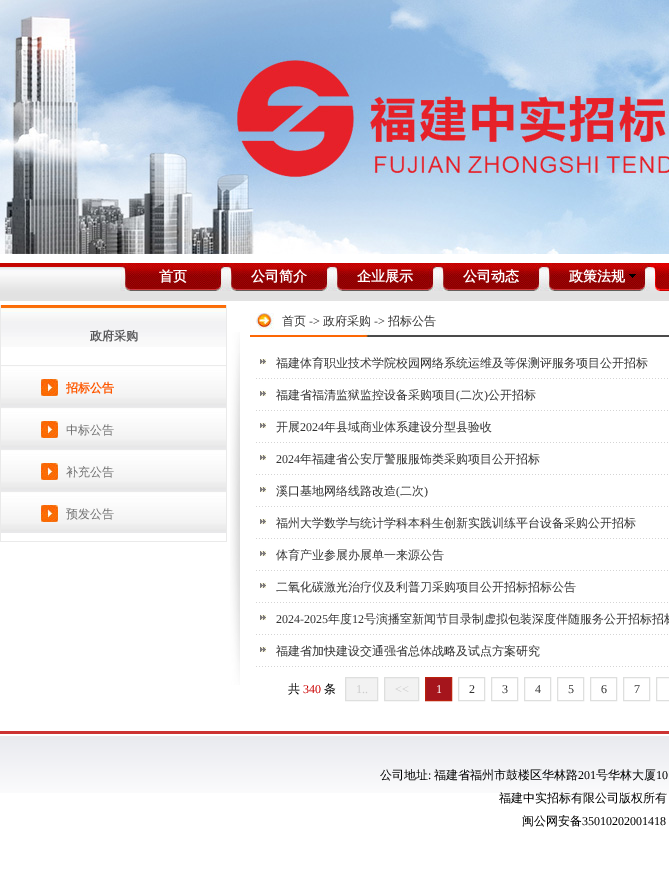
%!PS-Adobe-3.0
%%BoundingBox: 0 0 669 873
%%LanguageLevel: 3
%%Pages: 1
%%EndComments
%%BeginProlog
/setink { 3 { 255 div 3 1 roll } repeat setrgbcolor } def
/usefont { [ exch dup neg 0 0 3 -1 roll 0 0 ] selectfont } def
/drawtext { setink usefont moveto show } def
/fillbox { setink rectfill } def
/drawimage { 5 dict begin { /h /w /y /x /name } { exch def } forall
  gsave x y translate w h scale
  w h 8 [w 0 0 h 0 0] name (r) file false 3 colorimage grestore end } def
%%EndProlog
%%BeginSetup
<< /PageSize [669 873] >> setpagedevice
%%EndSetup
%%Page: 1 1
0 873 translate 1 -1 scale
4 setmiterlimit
0 0 669 873 255 255 255 fillbox
(assets/img1.rgb) 0 0 669 254 drawimage
(assets/img2.rgb) 0 263 669 38 drawimage
(assets/img3.rgb) 120 263 106 28 drawimage
(首页) 159 281 /WenQuanYiZenHei-Bold 14 255 255 255 drawtext
(assets/img3.rgb) 226 263 106 28 drawimage
(公司简介) 251 281 /WenQuanYiZenHei-Bold 14 255 255 255 drawtext
(assets/img3.rgb) 332 263 106 28 drawimage
(企业展示) 357 281 /WenQuanYiZenHei-Bold 14 255 255 255 drawtext
(assets/img3.rgb) 438 263 106 28 drawimage
(公司动态) 463 281 /WenQuanYiZenHei-Bold 14 255 255 255 drawtext
(assets/img3.rgb) 544 263 106 28 drawimage
(assets/img4.rgb) 629 274 7 4 drawimage
(政策法规) 569 281 /WenQuanYiZenHei-Bold 14 255 255 255 drawtext
(assets/img5.rgb) 650 263 19 28 drawimage
(assets/img6.rgb) 230 332 10 353 drawimage
(assets/img7.rgb) 1 305 225 42 drawimage
226 305 1 237 234 234 234 fillbox
0 541 227 1 234 234 234 fillbox
0 305 1 237 234 234 234 fillbox
(政府采购) 90 340 /WenQuanYiZenHei-Bold 12 87 87 89 drawtext
(assets/img8.rgb) 1 365 225 168 drawimage
(assets/img9.rgb) 41 379 17 17 drawimage
(招标公告) 66 392 /WenQuanYiZenHei-Bold 12 255 88 0 drawtext
(assets/img9.rgb) 41 421 17 17 drawimage
(中标公告) 66 434 /WenQuanYiZenHei-Medium 12 112 112 112 drawtext
(assets/img9.rgb) 41 463 17 17 drawimage
(补充公告) 66 476 /WenQuanYiZenHei-Medium 12 112 112 112 drawtext
(assets/img9.rgb) 41 505 17 17 drawimage
(预发公告) 66 518 /WenQuanYiZenHei-Medium 12 112 112 112 drawtext
(assets/img10.rgb) 250 313 419 24 drawimage
(首页) 282 325 /WenQuanYiZenHei-Medium 12 51 51 51 drawtext
(->) 309 325 /LiberationSerif-Regular 12 51 51 51 drawtext
(政府采购) 323 325 /WenQuanYiZenHei-Medium 12 51 51 51 drawtext
(->) 374 325 /LiberationSerif-Regular 12 51 51 51 drawtext
(招标公告) 388 325 /WenQuanYiZenHei-Medium 12 51 51 51 drawtext
(assets/img11.rgb) 260 359 6 293 drawimage
(assets/img12.rgb) 256 378 412 1 drawimage
(福建体育职业技术学院校园网络系统运维及等保测评服务项目公开招标) 276 367 /WenQuanYiZenHei-Medium 12 51 51 51 drawtext
(assets/img12.rgb) 256 410 412 1 drawimage
(福建省福清监狱监控设备采购项目) 276 399 /WenQuanYiZenHei-Medium 12 51 51 51 drawtext
(\() 456 399 /LiberationSerif-Regular 12 51 51 51 drawtext
(二次) 460 399 /WenQuanYiZenHei-Medium 12 51 51 51 drawtext
(\)) 484 399 /LiberationSerif-Regular 12 51 51 51 drawtext
(公开招标) 488 399 /WenQuanYiZenHei-Medium 12 51 51 51 drawtext
(assets/img12.rgb) 256 442 412 1 drawimage
(开展) 276 431 /WenQuanYiZenHei-Medium 12 51 51 51 drawtext
(2024) 300 431 /LiberationSerif-Regular 12 51 51 51 drawtext
(年县域商业体系建设分型县验收) 324 431 /WenQuanYiZenHei-Medium 12 51 51 51 drawtext
(assets/img12.rgb) 256 474 412 1 drawimage
(2024) 276 463 /LiberationSerif-Regular 12 51 51 51 drawtext
(年福建省公安厅警服服饰类采购项目公开招标) 300 463 /WenQuanYiZenHei-Medium 12 51 51 51 drawtext
(assets/img12.rgb) 256 506 412 1 drawimage
(溪口基地网络线路改造) 276 495 /WenQuanYiZenHei-Medium 12 51 51 51 drawtext
(\() 396 495 /LiberationSerif-Regular 12 51 51 51 drawtext
(二次) 400 495 /WenQuanYiZenHei-Medium 12 51 51 51 drawtext
(\)) 424 495 /LiberationSerif-Regular 12 51 51 51 drawtext
(assets/img12.rgb) 256 538 412 1 drawimage
(福州大学数学与统计学科本科生创新实践训练平台设备采购公开招标) 276 527 /WenQuanYiZenHei-Medium 12 51 51 51 drawtext
(assets/img12.rgb) 256 570 412 1 drawimage
(体育产业参展办展单一来源公告) 276 559 /WenQuanYiZenHei-Medium 12 51 51 51 drawtext
(assets/img12.rgb) 256 602 412 1 drawimage
(二氧化碳激光治疗仪及利普刀采购项目公开招标招标公告) 276 591 /WenQuanYiZenHei-Medium 12 51 51 51 drawtext
(assets/img12.rgb) 256 634 412 1 drawimage
(2024-2025) 276 623 /LiberationSerif-Regular 12 51 51 51 drawtext
(年度) 328 623 /WenQuanYiZenHei-Medium 12 51 51 51 drawtext
(12) 352 623 /LiberationSerif-Regular 12 51 51 51 drawtext
(号演播室新闻节目录制虚拟包装深度伴随服务公开招标招标) 364 623 /WenQuanYiZenHei-Medium 12 51 51 51 drawtext
(assets/img12.rgb) 256 666 412 1 drawimage
(福建省加快建设交通强省总体战略及试点方案研究) 276 655 /WenQuanYiZenHei-Medium 12 51 51 51 drawtext
(共) 288 693 /WenQuanYiZenHei-Medium 12 0 0 0 drawtext
(340) 303 693 /LiberationSerif-Regular 12 204 0 0 drawtext
(条) 324 693 /WenQuanYiZenHei-Medium 12 0 0 0 drawtext
242 242 242 setink
345.5 677.5 moveto 377.5 677.5 lineto 377.5 700.5 lineto 345.5 700.5 lineto closepath gsave fill grestore
222 223 222 setink
stroke
(1..) 356 693 /LiberationSerif-Regular 12 204 204 204 drawtext
242 242 242 setink
384.5 677.5 moveto 418.5 677.5 lineto 418.5 700.5 lineto 384.5 700.5 lineto closepath gsave fill grestore
222 223 222 setink
stroke
(<<) 395 693 /LiberationSerif-Regular 12 204 204 204 drawtext
165 21 28 setink
425.5 677.5 moveto 451.5 677.5 lineto 451.5 700.5 lineto 425.5 700.5 lineto closepath gsave fill grestore
186 33 13 setink
stroke
(1) 436 693 /LiberationSerif-Regular 12 255 255 255 drawtext
222 223 222 setink
458.5 677.5 26 23 rectstroke
(2) 469 693 /LiberationSerif-Regular 12 51 51 51 drawtext
222 223 222 setink
491.5 677.5 26 23 rectstroke
(3) 502 693 /LiberationSerif-Regular 12 51 51 51 drawtext
222 223 222 setink
524.5 677.5 26 23 rectstroke
(4) 535 693 /LiberationSerif-Regular 12 51 51 51 drawtext
222 223 222 setink
557.5 677.5 26 23 rectstroke
(5) 568 693 /LiberationSerif-Regular 12 51 51 51 drawtext
222 223 222 setink
590.5 677.5 26 23 rectstroke
(6) 601 693 /LiberationSerif-Regular 12 51 51 51 drawtext
222 223 222 setink
623.5 677.5 26 23 rectstroke
(7) 634 693 /LiberationSerif-Regular 12 51 51 51 drawtext
222 223 222 setink
656.5 677.5 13 23 rectstroke
(assets/img13.rgb) 0 731 669 62 drawimage
(公司地址) 380 779 /WenQuanYiZenHei-Medium 12 0 0 0 drawtext
(:) 428 779 /LiberationSerif-Regular 12 0 0 0 drawtext
(福建省福州市鼓楼区华林路) 434 779 /WenQuanYiZenHei-Medium 12 0 0 0 drawtext
(201) 578 779 /LiberationSerif-Regular 12 0 0 0 drawtext
(号华林大厦) 596 779 /WenQuanYiZenHei-Medium 12 0 0 0 drawtext
(10) 656 779 /LiberationSerif-Regular 12 0 0 0 drawtext
(福建中实招标有限公司版权所有) 499 802 /WenQuanYiZenHei-Medium 12 0 0 0 drawtext
(闽公网安备) 522 825 /WenQuanYiZenHei-Medium 12 0 0 0 drawtext
(35010202001418) 582 825 /LiberationSerif-Regular 12 0 0 0 drawtext
showpage
%%EOF
